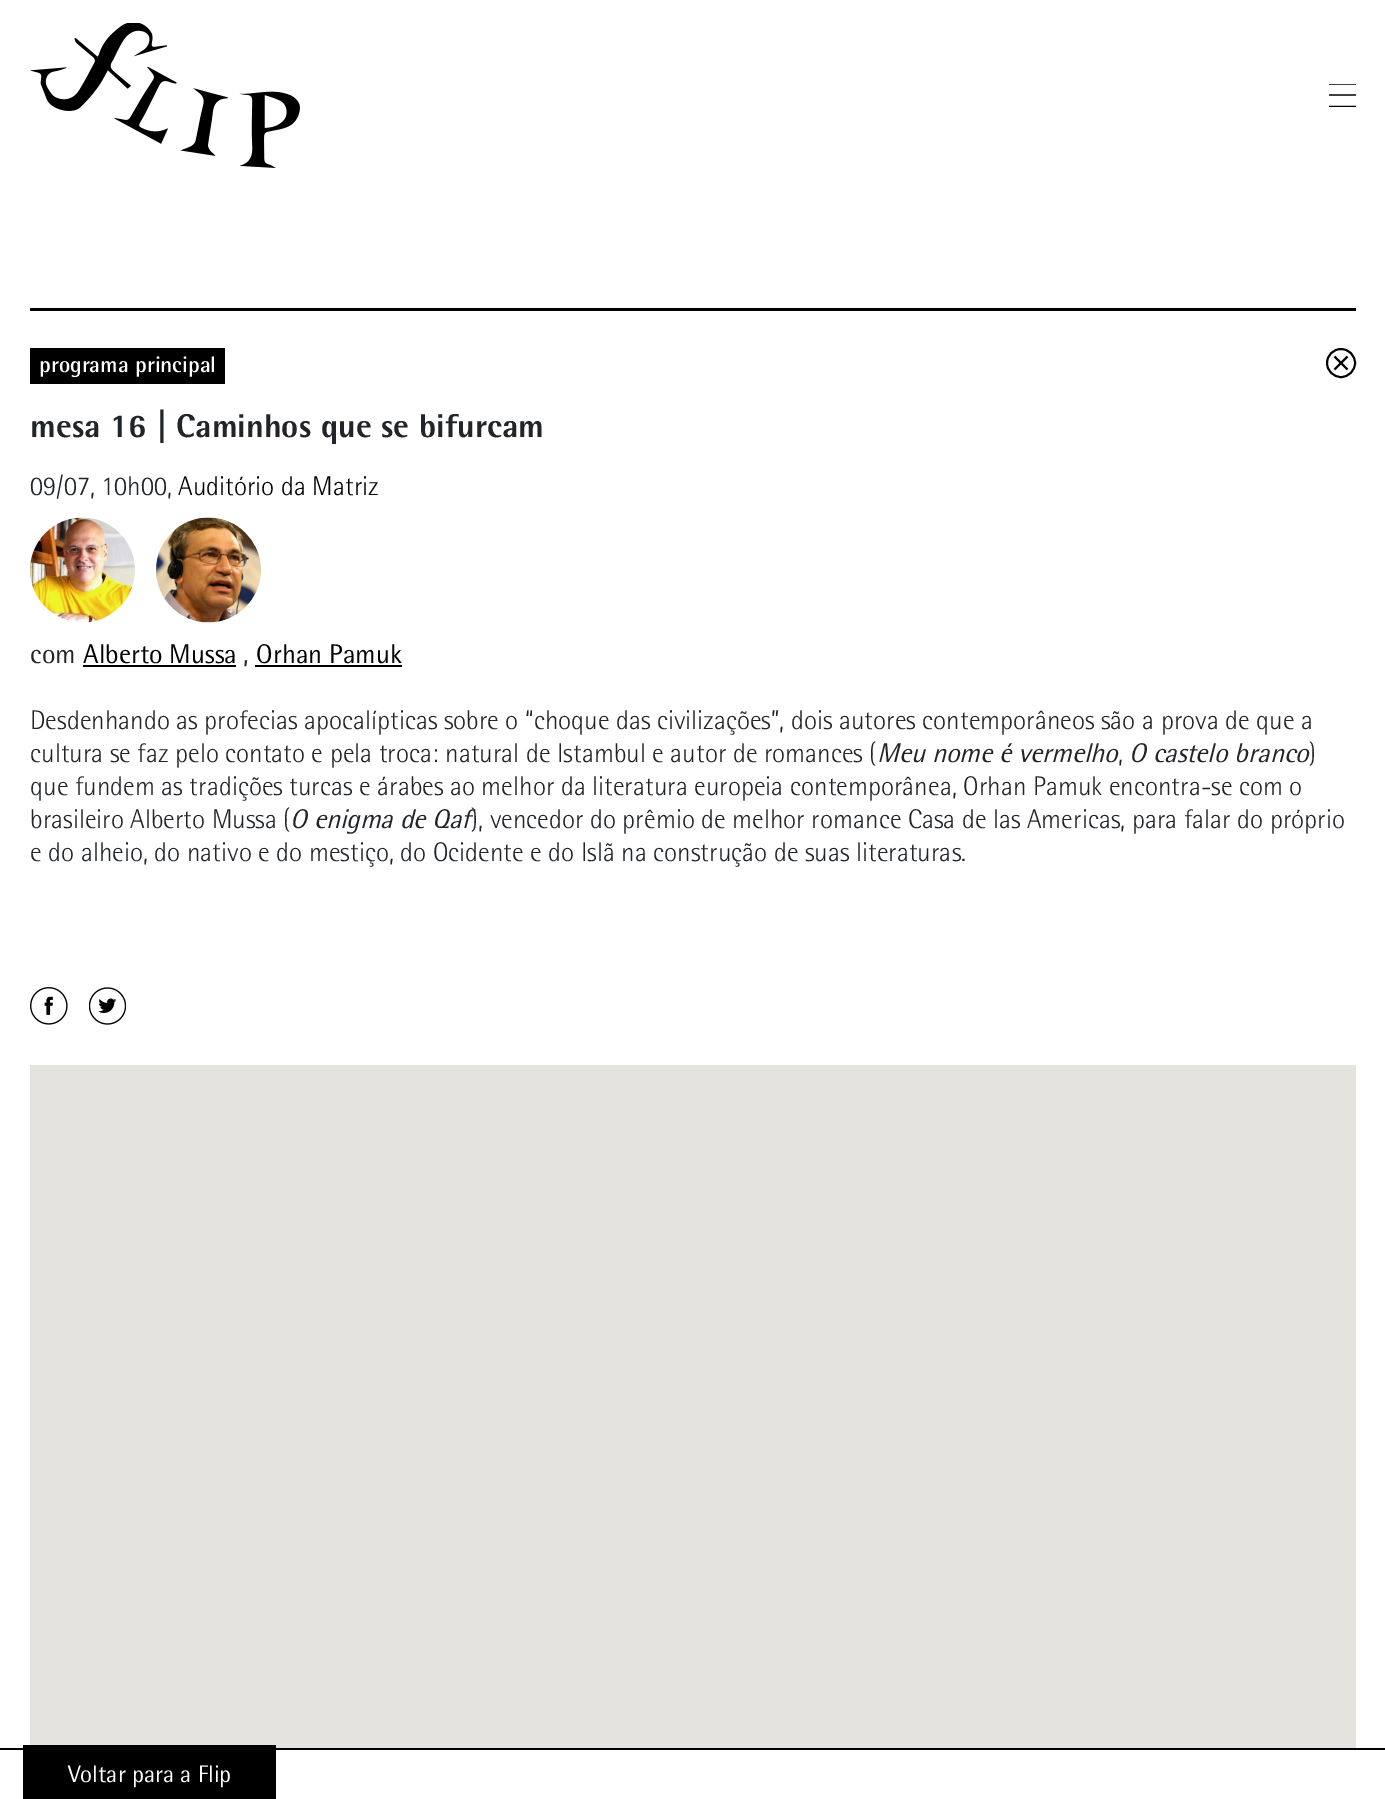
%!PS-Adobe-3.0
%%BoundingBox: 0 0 1385 1799
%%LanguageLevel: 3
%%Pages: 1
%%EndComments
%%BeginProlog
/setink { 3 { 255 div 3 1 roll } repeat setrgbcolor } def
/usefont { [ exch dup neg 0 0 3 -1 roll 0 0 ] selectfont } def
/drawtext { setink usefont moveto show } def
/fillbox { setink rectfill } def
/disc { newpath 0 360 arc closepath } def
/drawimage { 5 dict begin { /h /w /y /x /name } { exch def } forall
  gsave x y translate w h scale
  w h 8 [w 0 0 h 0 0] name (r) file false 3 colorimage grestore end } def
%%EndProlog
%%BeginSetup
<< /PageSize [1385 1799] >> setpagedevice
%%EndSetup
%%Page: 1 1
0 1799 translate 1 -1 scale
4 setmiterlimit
0 0 1385 1799 255 255 255 fillbox
(assets/img1.rgb) 30 23 270 145 drawimage
1329 84 27 1 64 64 64 fillbox
1329 94 27 2 64 64 64 fillbox
gsave
1329 84 27 23 rectclip
0 0 0 setink
1.5 setlinewidth
1329 106.5 moveto 1356 106.5 lineto stroke
grestore
30 308 1326 3 0 0 0 fillbox
30 348 195 36 0 0 0 fillbox
(programa principal) 39 372 /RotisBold-Bold 22.5 255 255 255 drawtext
0 0 0 setink
1.9 setlinewidth
1334.5 356.5 moveto 1347.5 369.5 lineto 1347.5 356.5 moveto 1334.5 369.5 lineto stroke
1341 363 14 disc stroke
(mesa 16 | Caminhos que se bifurcam) 30 437 /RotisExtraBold-ExtraBold 33 33 37 41 drawtext
(09/07, 10h00,) 30 495 /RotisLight-Light 27 33 37 41 drawtext
(Auditório da Matriz) 178 495 /RotisLight-Light 27 0 0 0 drawtext
(assets/img2.rgb) 30 517 105 105 drawimage
(assets/img3.rgb) 156 517 105 106 drawimage
(com) 30 663 /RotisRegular-Regular 27 33 37 41 drawtext
(Alberto Mussa) 83 663 /RotisRegular-Regular 27 0 0 0 drawtext
83 665 153 2 0 0 0 fillbox
(,) 243 663 /RotisRegular-Regular 27 33 37 41 drawtext
(Orhan Pamuk) 256 663 /RotisRegular-Regular 27 0 0 0 drawtext
255 665 147 2 0 0 0 fillbox
(Desdenhando as profecias apocalípticas sobre o “choque das civilizações”, dois autores contemporâneos são a prova de que a) 30 729 /RotisLight-Light 27 33 37 41 drawtext
(cultura se faz pelo contato e pela troca: natural de Istambul e autor de romances \() 30 762 /RotisLight-Light 27 33 37 41 drawtext
(Meu nome é vermelho) 877 762 /RotisRegular-Italic 27 33 37 41 drawtext
(,) 1118 762 /RotisLight-Light 27 33 37 41 drawtext
(O castelo branco) 1129 762 /RotisRegular-Italic 27 33 37 41 drawtext
(\)) 1309 762 /RotisLight-Light 27 33 37 41 drawtext
(que fundem as tradições turcas e árabes ao melhor da literatura europeia contemporânea, Orhan Pamuk encontra-se com o) 30 795 /RotisLight-Light 27 33 37 41 drawtext
(brasileiro Alberto Mussa \() 30 828 /RotisLight-Light 27 33 37 41 drawtext
(O enigma de Qaf) 290 828 /RotisRegular-Italic 27 33 37 41 drawtext
(\), vencedor do prêmio de melhor romance Casa de las Americas, para falar do próprio) 471 828 /RotisLight-Light 27 33 37 41 drawtext
(e do alheio, do nativo e do mestiço, do Ocidente e do Islã na construção de suas literaturas.) 30 861 /RotisLight-Light 27 33 37 41 drawtext
(assets/img4.rgb) 30 987 38 38 drawimage
(assets/img5.rgb) 89 987 37 38 drawimage
30 1065 1326 683 229 227 223 fillbox
0 1748 1385 2 0 0 0 fillbox
23 1745 253 54 0 0 0 fillbox
(Voltar para a Flip) 68 1782 /RotisRegular-Regular 24 255 255 255 drawtext
showpage
%%EOF
